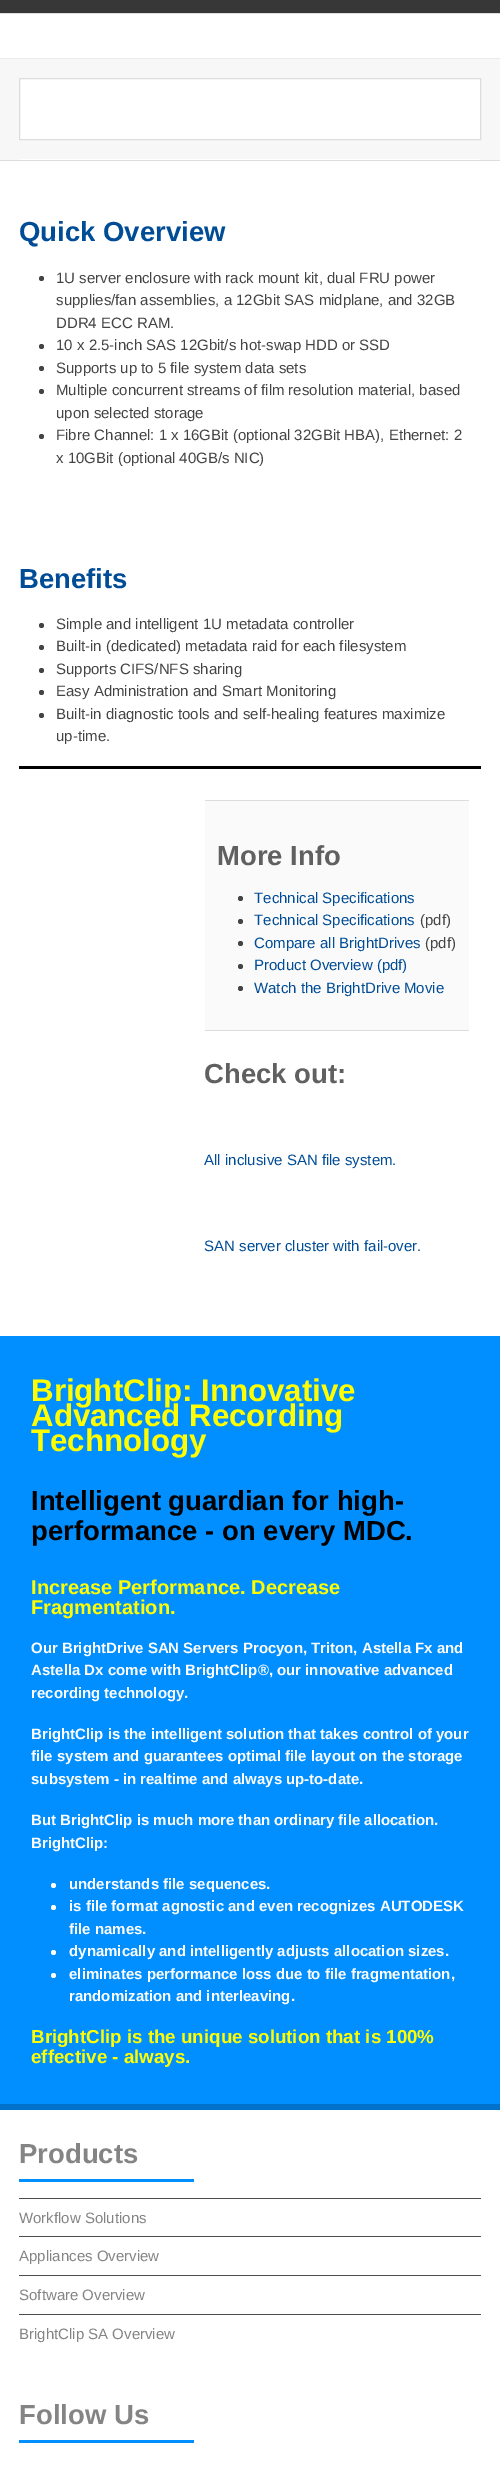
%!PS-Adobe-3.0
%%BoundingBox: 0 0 500 2478
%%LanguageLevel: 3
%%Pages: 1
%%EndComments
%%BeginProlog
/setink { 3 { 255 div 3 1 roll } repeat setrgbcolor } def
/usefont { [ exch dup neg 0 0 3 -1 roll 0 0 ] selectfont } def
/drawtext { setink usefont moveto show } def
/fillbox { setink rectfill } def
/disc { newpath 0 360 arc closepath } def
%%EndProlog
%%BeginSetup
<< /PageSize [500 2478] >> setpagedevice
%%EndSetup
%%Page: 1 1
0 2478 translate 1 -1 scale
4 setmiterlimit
0 0 500 2478 255 255 255 fillbox
0 0 500 13 55 55 55 fillbox
0 13 500 1 221 221 221 fillbox
0 58 500 1 234 234 234 fillbox
0 59 500 101 247 247 247 fillbox
0 160 500 1 221 221 221 fillbox
255 255 255 setink
19.5 78.5 moveto 480.5 78.5 lineto 480.5 139.5 lineto 19.5 139.5 lineto closepath gsave fill grestore
221 221 221 setink
stroke
19 159 462 1 255 255 255 fillbox
19 766 462 3 0 0 0 fillbox
(Quick Overview) 19 241 /LiberationSans-Bold 27.5 0 76 150 drawtext
68 68 68 setink
41.5 278.5 2.5 disc fill
(1U server enclosure with rack mount kit, dual FRU power) 56 283 /LiberationSans-Regular 15 68 68 68 drawtext
(supplies/fan assemblies, a 12Gbit SAS midplane, and 32GB) 56 305 /LiberationSans-Regular 15 68 68 68 drawtext
(DDR4 ECC RAM.) 56 328 /LiberationSans-Regular 15 68 68 68 drawtext
41.5 346.5 2.5 disc fill
(10 x 2.5-inch SAS 12Gbit/s hot-swap HDD or SSD) 56 350 /LiberationSans-Regular 15 68 68 68 drawtext
41.5 368.5 2.5 disc fill
(Supports up to 5 file system data sets) 56 373 /LiberationSans-Regular 15 68 68 68 drawtext
41.5 391.5 2.5 disc fill
(Multiple concurrent streams of film resolution material, based) 56 395 /LiberationSans-Regular 15 68 68 68 drawtext
(upon selected storage) 56 418 /LiberationSans-Regular 15 68 68 68 drawtext
41.5 436.5 2.5 disc fill
(Fibre Channel: 1 x 16GBit \(optional 32GBit HBA\), Ethernet: 2) 56 440 /LiberationSans-Regular 15 68 68 68 drawtext
(x 10GBit \(optional 40GB/s NIC\)) 56 463 /LiberationSans-Regular 15 68 68 68 drawtext
(Benefits) 19 588 /LiberationSans-Bold 27.5 0 76 150 drawtext
68 68 68 setink
41.5 625.5 2.5 disc fill
(Simple and intelligent 1U metadata controller) 56 629 /LiberationSans-Regular 15 68 68 68 drawtext
41.5 647.5 2.5 disc fill
(Built-in \(dedicated\) metadata raid for each filesystem) 56 651 /LiberationSans-Regular 15 68 68 68 drawtext
41.5 670.5 2.5 disc fill
(Supports CIFS/NFS sharing) 56 674 /LiberationSans-Regular 15 68 68 68 drawtext
41.5 692.5 2.5 disc fill
(Easy Administration and Smart Monitoring) 56 696 /LiberationSans-Regular 15 68 68 68 drawtext
41.5 715.5 2.5 disc fill
(Built-in diagnostic tools and self-healing features maximize) 56 719 /LiberationSans-Regular 15 68 68 68 drawtext
(up-time.) 56 741 /LiberationSans-Regular 15 68 68 68 drawtext
205 801 264 229 250 250 250 fillbox
205 800 264 1 221 221 221 fillbox
205 1030 264 1 221 221 221 fillbox
(More Info) 217 865 /LiberationSans-Bold 27.5 96 96 96 drawtext
68 68 68 setink
240.5 898.5 2.5 disc fill
(Technical Specifications) 254 903 /LiberationSans-Regular 15 0 76 150 drawtext
68 68 68 setink
240.5 921.5 2.5 disc fill
(Technical Specifications) 254 925 /LiberationSans-Regular 15 0 76 150 drawtext
(\(pdf\)) 420 925 /LiberationSans-Regular 15 68 68 68 drawtext
240.5 943.5 2.5 disc fill
(Compare all BrightDrives) 254 948 /LiberationSans-Regular 15 0 76 150 drawtext
(\(pdf\)) 425 948 /LiberationSans-Regular 15 68 68 68 drawtext
240.5 966.5 2.5 disc fill
(Product Overview \(pdf\)) 254 970 /LiberationSans-Regular 15 0 76 150 drawtext
68 68 68 setink
240.5 988.5 2.5 disc fill
(Watch the BrightDrive Movie) 254 993 /LiberationSans-Regular 15 0 76 150 drawtext
(Check out:) 204 1083 /LiberationSans-Bold 27.5 96 96 96 drawtext
(All inclusive SAN file system.) 204 1165 /LiberationSans-Regular 15 0 76 150 drawtext
(SAN server cluster with fail-over.) 204 1251 /LiberationSans-Regular 15 0 76 150 drawtext
0 1336 500 768 1 143 255 fillbox
0 2104 500 6 1 114 204 fillbox
(BrightClip: Innovative) 31 1401 /LiberationSans-Bold 31.25 255 255 0 drawtext
(Advanced Recording) 31 1426 /LiberationSans-Bold 31.25 255 255 0 drawtext
(Technology) 31 1451 /LiberationSans-Bold 31.25 255 255 0 drawtext
(Intelligent guardian for high-) 31 1510 /LiberationSans-Bold 27.5 0 0 0 drawtext
(performance - on every MDC.) 31 1540 /LiberationSans-Bold 27.5 0 0 0 drawtext
(Increase Performance. Decrease) 31 1594 /LiberationSans-Bold 20 255 255 0 drawtext
(Fragmentation.) 31 1614 /LiberationSans-Bold 20 255 255 0 drawtext
(Our BrightDrive SAN Servers Procyon, Triton, Astella Fx and) 31 1653 /LiberationSans-Bold 15 255 255 255 drawtext
(Astella Dx come with BrightClip®, our innovative advanced) 31 1675 /LiberationSans-Bold 15 255 255 255 drawtext
(recording technology.) 31 1698 /LiberationSans-Bold 15 255 255 255 drawtext
(BrightClip is the intelligent solution that takes control of your) 31 1739 /LiberationSans-Bold 15 255 255 255 drawtext
(file system and guarantees optimal file layout on the storage) 31 1761 /LiberationSans-Bold 15 255 255 255 drawtext
(subsystem - in realtime and always up-to-date.) 31 1784 /LiberationSans-Bold 15 255 255 255 drawtext
(But BrightClip is much more than ordinary file allocation.) 31 1825 /LiberationSans-Bold 15 255 255 255 drawtext
(BrightClip:) 31 1848 /LiberationSans-Bold 15 255 255 255 drawtext
53.5 1885.5 2.5 disc fill
(understands file sequences.) 69 1889 /LiberationSans-Bold 15 255 255 255 drawtext
53.5 1907.5 2.5 disc fill
(is file format agnostic and even recognizes AUTODESK) 69 1911 /LiberationSans-Bold 15 255 255 255 drawtext
(file names.) 69 1934 /LiberationSans-Bold 15 255 255 255 drawtext
53.5 1952.5 2.5 disc fill
(dynamically and intelligently adjusts allocation sizes.) 69 1956 /LiberationSans-Bold 15 255 255 255 drawtext
53.5 1975.5 2.5 disc fill
(eliminates performance loss due to file fragmentation,) 69 1979 /LiberationSans-Bold 15 255 255 255 drawtext
(randomization and interleaving.) 69 2001 /LiberationSans-Bold 15 255 255 255 drawtext
(BrightClip is the unique solution that is 100%) 31 2043 /LiberationSans-Bold 18.75 255 255 0 drawtext
(effective - always.) 31 2063 /LiberationSans-Bold 18.75 255 255 0 drawtext
(Products) 19 2163 /LiberationSans-Bold 27.5 132 132 132 drawtext
19 2179 175 3 1 143 255 fillbox
19 2198 462 1 77 77 77 fillbox
(Workflow Solutions) 19 2223 /LiberationSans-Regular 15 132 132 132 drawtext
19 2236 462 1 77 77 77 fillbox
(Appliances Overview) 19 2261 /LiberationSans-Regular 15 132 132 132 drawtext
19 2275 462 1 77 77 77 fillbox
(Software Overview) 19 2300 /LiberationSans-Regular 15 132 132 132 drawtext
19 2314 462 1 77 77 77 fillbox
(BrightClip SA Overview) 19 2339 /LiberationSans-Regular 15 132 132 132 drawtext
(Follow Us) 19 2424 /LiberationSans-Bold 27.5 132 132 132 drawtext
19 2440 175 3 1 143 255 fillbox
showpage
%%EOF
